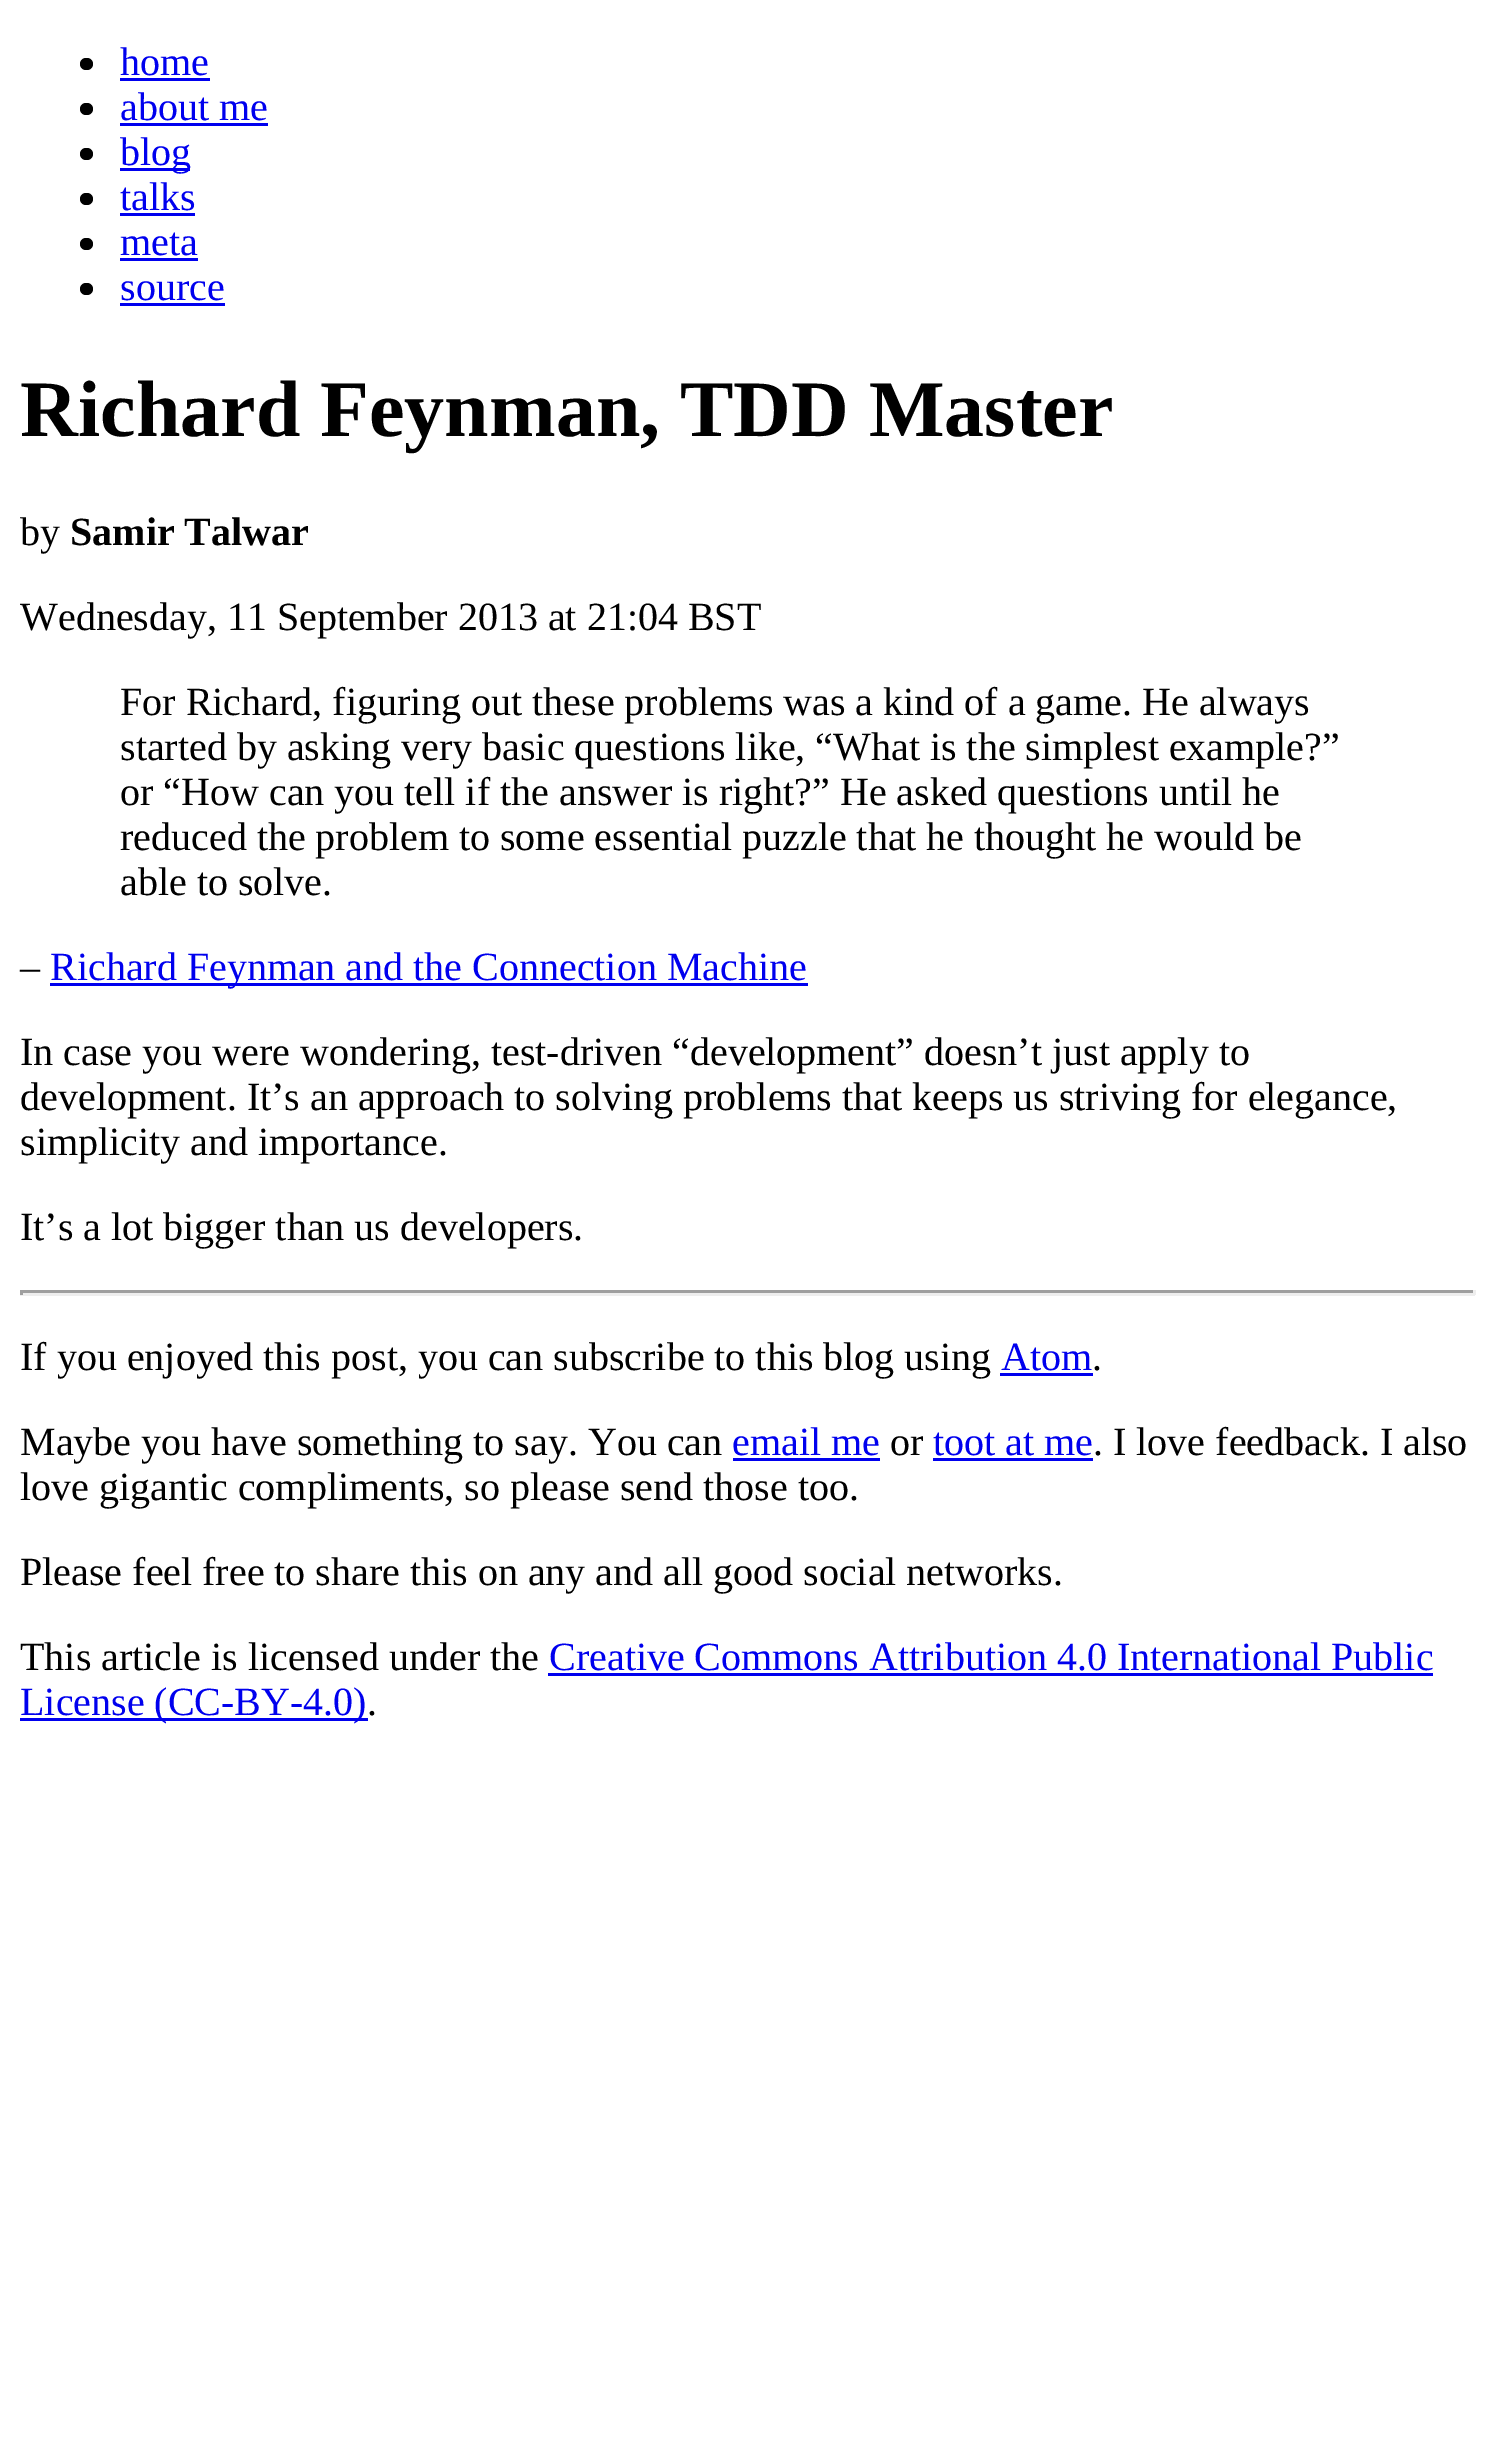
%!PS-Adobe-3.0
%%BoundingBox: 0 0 1495 2443
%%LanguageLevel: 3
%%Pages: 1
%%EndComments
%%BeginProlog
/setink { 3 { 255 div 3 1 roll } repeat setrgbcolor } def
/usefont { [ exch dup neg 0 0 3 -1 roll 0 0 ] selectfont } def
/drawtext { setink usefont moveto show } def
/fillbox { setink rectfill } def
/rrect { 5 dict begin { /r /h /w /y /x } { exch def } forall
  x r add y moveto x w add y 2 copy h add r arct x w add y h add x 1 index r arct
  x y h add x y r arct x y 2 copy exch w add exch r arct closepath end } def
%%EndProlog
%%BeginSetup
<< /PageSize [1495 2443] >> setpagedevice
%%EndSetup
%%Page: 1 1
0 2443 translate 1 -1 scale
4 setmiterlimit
0 0 1495 2443 255 255 255 fillbox
0 0 0 setink
80 58 13 12 6 rrect fill
(home) 120 75 /LiberationSerif-Regular 40 0 0 238 drawtext
120 78 90 3 0 0 238 fillbox
0 0 0 setink
80 103 13 12 6 rrect fill
(about me) 120 120 /LiberationSerif-Regular 40 0 0 238 drawtext
120 123 148 3 0 0 238 fillbox
0 0 0 setink
80 148 13 12 6 rrect fill
120 168 70 3 0 0 238 fillbox
(blog) 120 165 /LiberationSerif-Regular 40 0 0 238 drawtext
0 0 0 setink
80 193 13 12 6 rrect fill
(talks) 120 210 /LiberationSerif-Regular 40 0 0 238 drawtext
120 213 75 3 0 0 238 fillbox
0 0 0 setink
80 238 13 12 6 rrect fill
(meta) 120 255 /LiberationSerif-Regular 40 0 0 238 drawtext
120 258 78 3 0 0 238 fillbox
0 0 0 setink
80 283 13 12 6 rrect fill
(source) 120 300 /LiberationSerif-Regular 40 0 0 238 drawtext
120 303 105 3 0 0 238 fillbox
(Richard Feynman, TDD Master) 20 436 /LiberationSerif-Bold 80 0 0 0 drawtext
(by) 20 545 /LiberationSerif-Regular 40 0 0 0 drawtext
(Samir Talwar) 70 545 /LiberationSerif-Bold 40 0 0 0 drawtext
(Wednesday, 11 September 2013 at 21:04 BST) 20 630 /LiberationSerif-Regular 40 0 0 0 drawtext
(For Richard, figuring out these problems was a kind of a game. He always) 120 715 /LiberationSerif-Regular 40 0 0 0 drawtext
(started by asking very basic questions like, “What is the simplest example?”) 120 760 /LiberationSerif-Regular 40 0 0 0 drawtext
(or “How can you tell if the answer is right?” He asked questions until he) 120 805 /LiberationSerif-Regular 40 0 0 0 drawtext
(reduced the problem to some essential puzzle that he thought he would be) 120 850 /LiberationSerif-Regular 40 0 0 0 drawtext
(able to solve.) 120 895 /LiberationSerif-Regular 40 0 0 0 drawtext
(–) 20 980 /LiberationSerif-Regular 40 0 0 0 drawtext
50 983 758 3 0 0 238 fillbox
(Richard Feynman and the Connection Machine) 50 980 /LiberationSerif-Regular 40 0 0 238 drawtext
(In case you were wondering, test-driven “development” doesn’t just apply to) 20 1065 /LiberationSerif-Regular 40 0 0 0 drawtext
(development. It’s an approach to solving problems that keeps us striving for elegance,) 20 1110 /LiberationSerif-Regular 40 0 0 0 drawtext
(simplicity and importance.) 20 1155 /LiberationSerif-Regular 40 0 0 0 drawtext
(It’s a lot bigger than us developers.) 20 1240 /LiberationSerif-Regular 40 0 0 0 drawtext
20 1290 1455 3 159 159 159 fillbox
1473 1290 3 5 238 238 238 fillbox
20 1293 1455 3 238 238 238 fillbox
20 1290 3 5 159 159 159 fillbox
(If you enjoyed this post, you can subscribe to this blog using) 20 1370 /LiberationSerif-Regular 40 0 0 0 drawtext
(Atom) 1001 1370 /LiberationSerif-Regular 40 0 0 238 drawtext
1000 1373 93 3 0 0 238 fillbox
(.) 1092 1370 /LiberationSerif-Regular 40 0 0 0 drawtext
(Maybe you have something to say. You can) 20 1455 /LiberationSerif-Regular 40 0 0 0 drawtext
(email me) 732 1455 /LiberationSerif-Regular 40 0 0 238 drawtext
733 1458 147 3 0 0 238 fillbox
(or) 890 1455 /LiberationSerif-Regular 40 0 0 0 drawtext
(toot at me) 933 1455 /LiberationSerif-Regular 40 0 0 238 drawtext
933 1458 160 3 0 0 238 fillbox
(. I love feedback. I also) 1093 1455 /LiberationSerif-Regular 40 0 0 0 drawtext
(love gigantic compliments, so please send those too.) 20 1500 /LiberationSerif-Regular 40 0 0 0 drawtext
(Please feel free to share this on any and all good social networks.) 20 1585 /LiberationSerif-Regular 40 0 0 0 drawtext
(This article is licensed under the) 20 1670 /LiberationSerif-Regular 40 0 0 0 drawtext
(Creative Commons Attribution 4.0 International Public) 549 1670 /LiberationSerif-Regular 40 0 0 238 drawtext
548 1673 885 3 0 0 238 fillbox
20 1718 348 3 0 0 238 fillbox
(License \(CC-BY-4.0\)) 20 1715 /LiberationSerif-Regular 40 0 0 238 drawtext
(.) 367 1715 /LiberationSerif-Regular 40 0 0 0 drawtext
showpage
%%EOF
